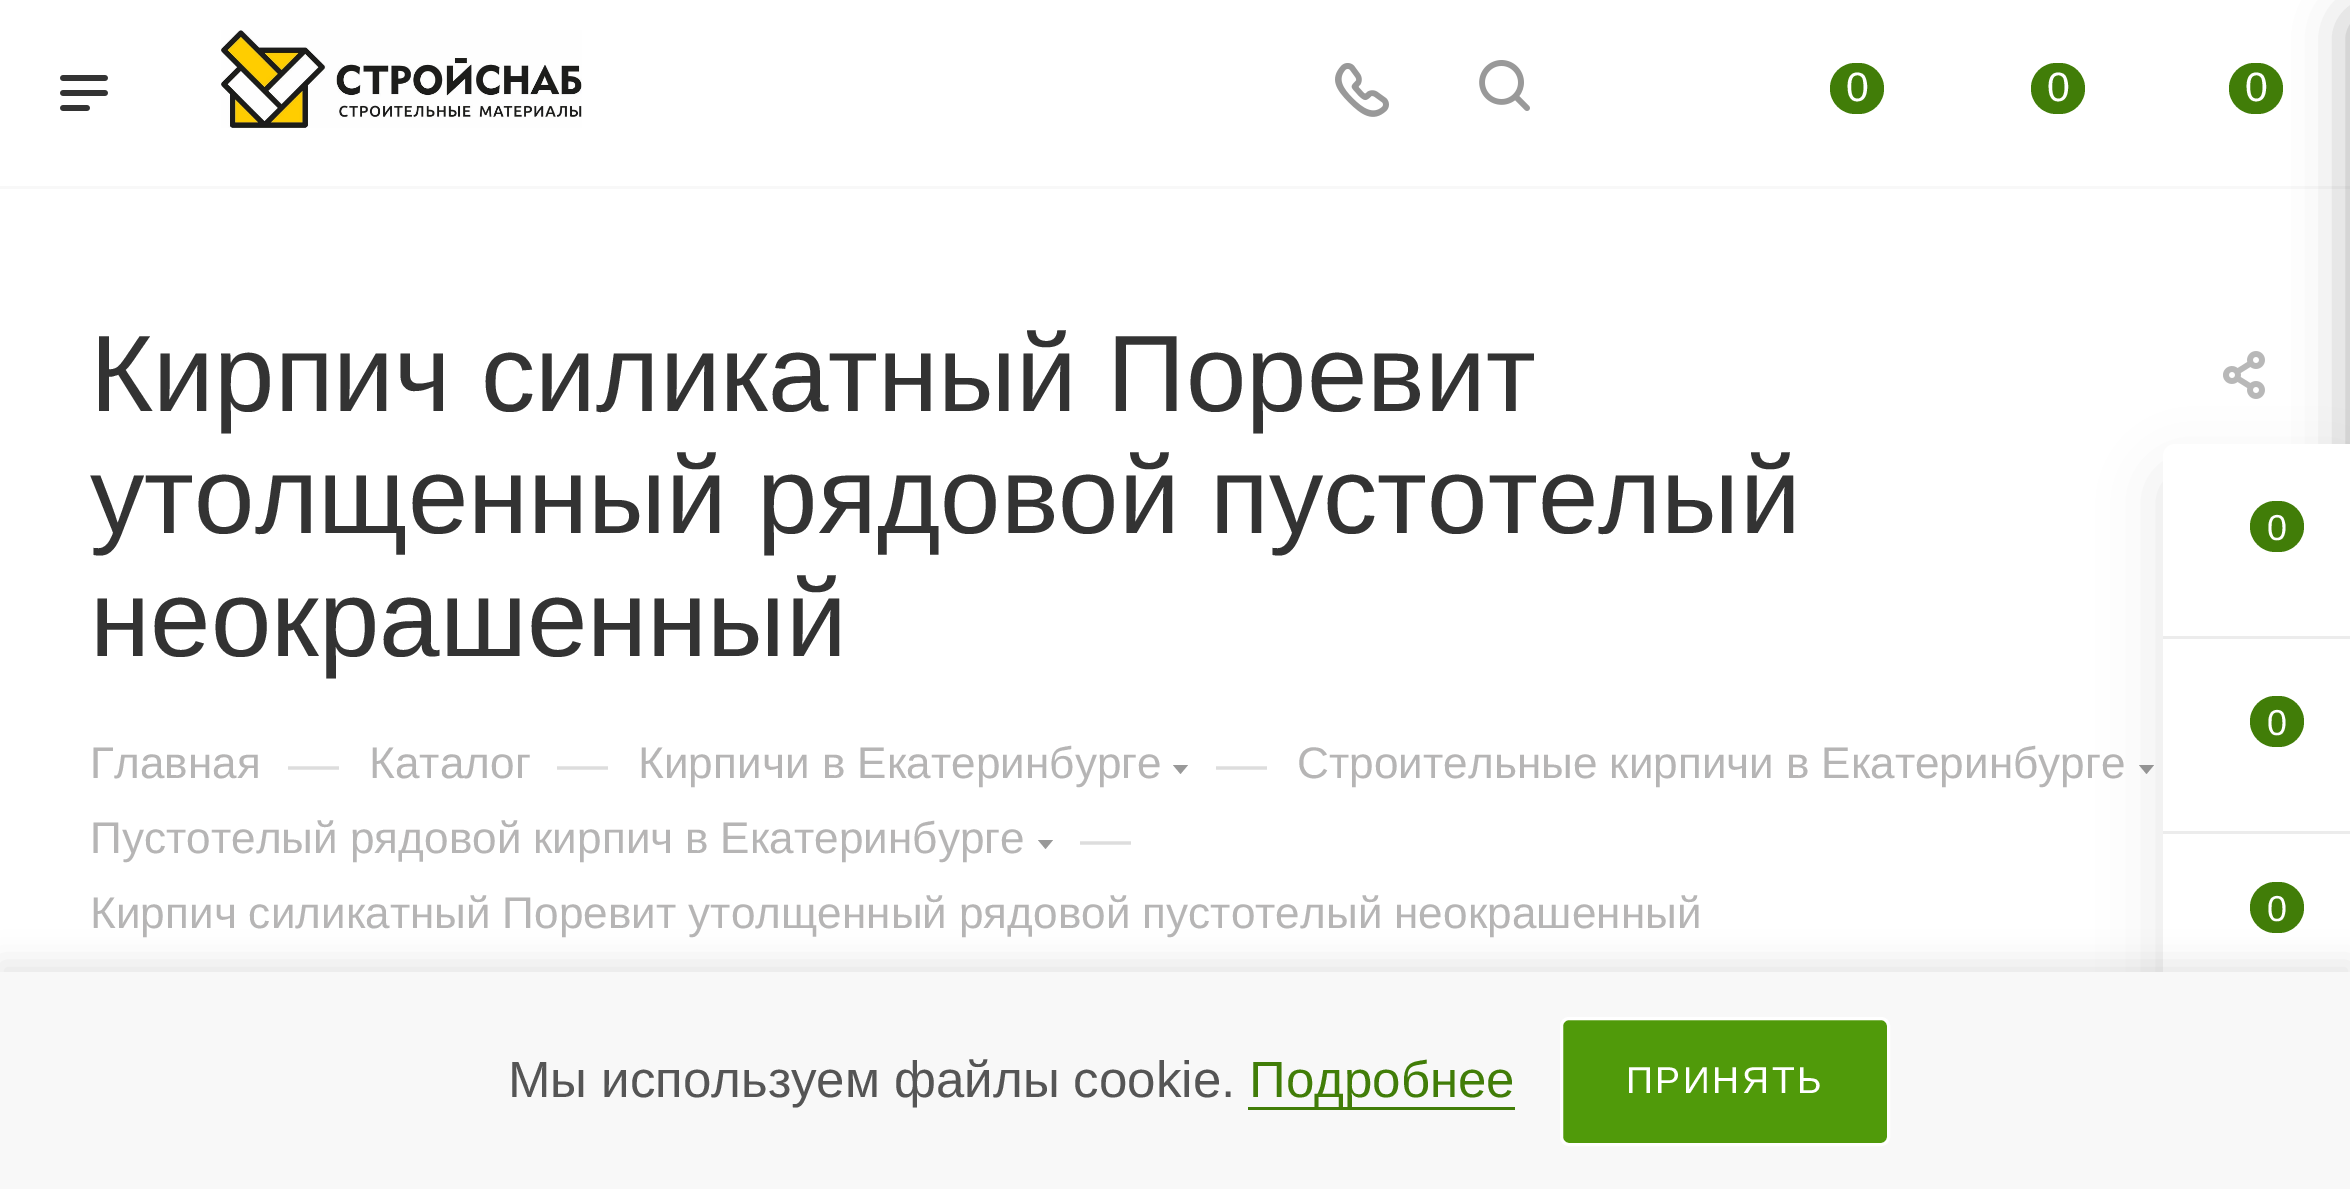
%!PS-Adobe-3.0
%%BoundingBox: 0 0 2350 1189
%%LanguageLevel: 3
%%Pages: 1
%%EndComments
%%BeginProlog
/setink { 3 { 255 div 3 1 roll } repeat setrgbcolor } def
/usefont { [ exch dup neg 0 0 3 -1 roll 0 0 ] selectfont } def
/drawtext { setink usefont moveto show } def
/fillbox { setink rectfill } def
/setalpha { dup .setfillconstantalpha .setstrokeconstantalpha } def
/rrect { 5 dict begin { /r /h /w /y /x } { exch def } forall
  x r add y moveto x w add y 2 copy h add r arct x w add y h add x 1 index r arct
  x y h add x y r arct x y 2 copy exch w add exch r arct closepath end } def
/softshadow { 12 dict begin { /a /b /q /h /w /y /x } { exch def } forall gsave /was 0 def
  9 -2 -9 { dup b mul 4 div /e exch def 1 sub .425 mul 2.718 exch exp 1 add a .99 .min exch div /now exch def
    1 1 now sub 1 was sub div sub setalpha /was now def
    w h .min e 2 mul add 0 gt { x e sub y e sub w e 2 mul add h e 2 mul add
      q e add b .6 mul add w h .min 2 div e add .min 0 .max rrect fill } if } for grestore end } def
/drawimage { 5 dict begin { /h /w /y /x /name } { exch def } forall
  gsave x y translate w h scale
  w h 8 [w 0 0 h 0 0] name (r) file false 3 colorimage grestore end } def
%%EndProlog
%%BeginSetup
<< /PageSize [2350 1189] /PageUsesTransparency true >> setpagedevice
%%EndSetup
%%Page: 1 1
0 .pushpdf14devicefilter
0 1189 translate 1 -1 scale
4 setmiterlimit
0 0 2350 1189 255 255 255 fillbox
0 186 2350 3 248 248 248 fillbox
(assets/img1.rgb) 60 75 48 36 drawimage
(assets/img2.rgb) 221 30 361 98 drawimage
(assets/img3.rgb) 1335 63 54 54 drawimage
(assets/img4.rgb) 1479 60 51 51 drawimage
65 125 8 setink
1830 63 54 51 25.5 rrect fill
(0) 1846 101 /LiberationSans-Regular 41 255 255 255 drawtext
65 125 8 setink
2031 63 54 51 25.5 rrect fill
(0) 2047 101 /LiberationSans-Regular 41 255 255 255 drawtext
65 125 8 setink
2229 63 54 51 25.5 rrect fill
(0) 2245 101 /LiberationSans-Regular 41 255 255 255 drawtext
(Кирпич силикатный Поревит) 90 411 /LiberationSans-Regular 108.75 51 51 51 drawtext
(утолщенный рядовой пустотелый) 90 533 /LiberationSans-Regular 108.75 51 51 51 drawtext
(неокрашенный) 90 656 /LiberationSans-Regular 108.75 51 51 51 drawtext
(assets/img5.rgb) 2223 351 42 48 drawimage
(Главная) 90 778 /LiberationSans-Regular 44.2 182 181 181 drawtext
(—) 288 781 /LiberationSans-Regular 51 221 221 221 drawtext
(Каталог) 369 778 /LiberationSans-Regular 44.2 182 181 181 drawtext
(—) 557 781 /LiberationSans-Regular 51 221 221 221 drawtext
(Кирпичи в Екатеринбурге) 638 778 /LiberationSans-Regular 44.2 182 181 181 drawtext
153 153 153 setink
1173 765 moveto 1188 765 lineto 1180.5 774 lineto closepath eofill
(—) 1216 781 /LiberationSans-Regular 51 221 221 221 drawtext
/LiberationSans-Regular 44.2 usefont
182 181 181 setink
1297 778 moveto -0.5 0 32 (Строительные кирпичи в Екатеринбурге) widthshow
153 153 153 setink
2139 765 moveto 2154 765 lineto 2146.5 774 lineto closepath eofill
182 181 181 setink
90 853 moveto -0.5 0 32 (Пустотелый рядовой кирпич в Екатеринбурге) widthshow
153 153 153 setink
1038 840 moveto 1053 840 lineto 1045.5 849 lineto closepath eofill
(—) 1080 856 /LiberationSans-Regular 51 221 221 221 drawtext
/LiberationSans-Regular 44.2 usefont
182 181 181 setink
90 928 moveto -0.5 0 32 (Кирпич силикатный Поревит утолщенный рядовой пустотелый неокрашенный) widthshow
44 44 44 setink
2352 18 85 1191 6 27 0.4 softshadow
0 0 0 setink
2163 474 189 585 12 30 0.1 softshadow
255 255 255 setink
2175 444 moveto 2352 444 lineto 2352 1029 lineto 2175 1029 lineto 2168.5 1029 2163 1023.5 2163 1017 curveto 2163 456 lineto 2163 449.5 2168.5 444 2175 444 curveto closepath fill
2163 636 187 3 236 236 236 fillbox
65 125 8 setink
2250 501 54 51 25.5 rrect fill
(0) 2267 540 /LiberationSans-Regular 36 255 255 255 drawtext
2163 831 187 3 236 236 236 fillbox
65 125 8 setink
2250 696 54 51 25.5 rrect fill
(0) 2267 735 /LiberationSans-Regular 36 255 255 255 drawtext
65 125 8 setink
2250 882 54 51 25.5 rrect fill
(0) 2267 921 /LiberationSans-Regular 36 255 255 255 drawtext
0 0 0 setink
0 963 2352 219 0 15 0.1 softshadow
0 972 2350 217 248 248 248 fillbox
(Мы используем файлы cookie.) 508 1097 /LiberationSans-Regular 51 85 85 85 drawtext
1248 1107 267 3 65 125 8 fillbox
(Подробнее) 1249 1097 /LiberationSans-Regular 51 65 125 8 drawtext
80 154 10 setink
1561.5 1018.5 327 126 7.5 rrect gsave fill grestore
255 255 255 setink
3 setlinewidth
stroke
/LiberationSans-Regular 37.5 usefont
1626 1093 moveto 2.5 0 (ПРИНЯТЬ) ashow
.poppdf14devicefilter showpage
%%EOF
